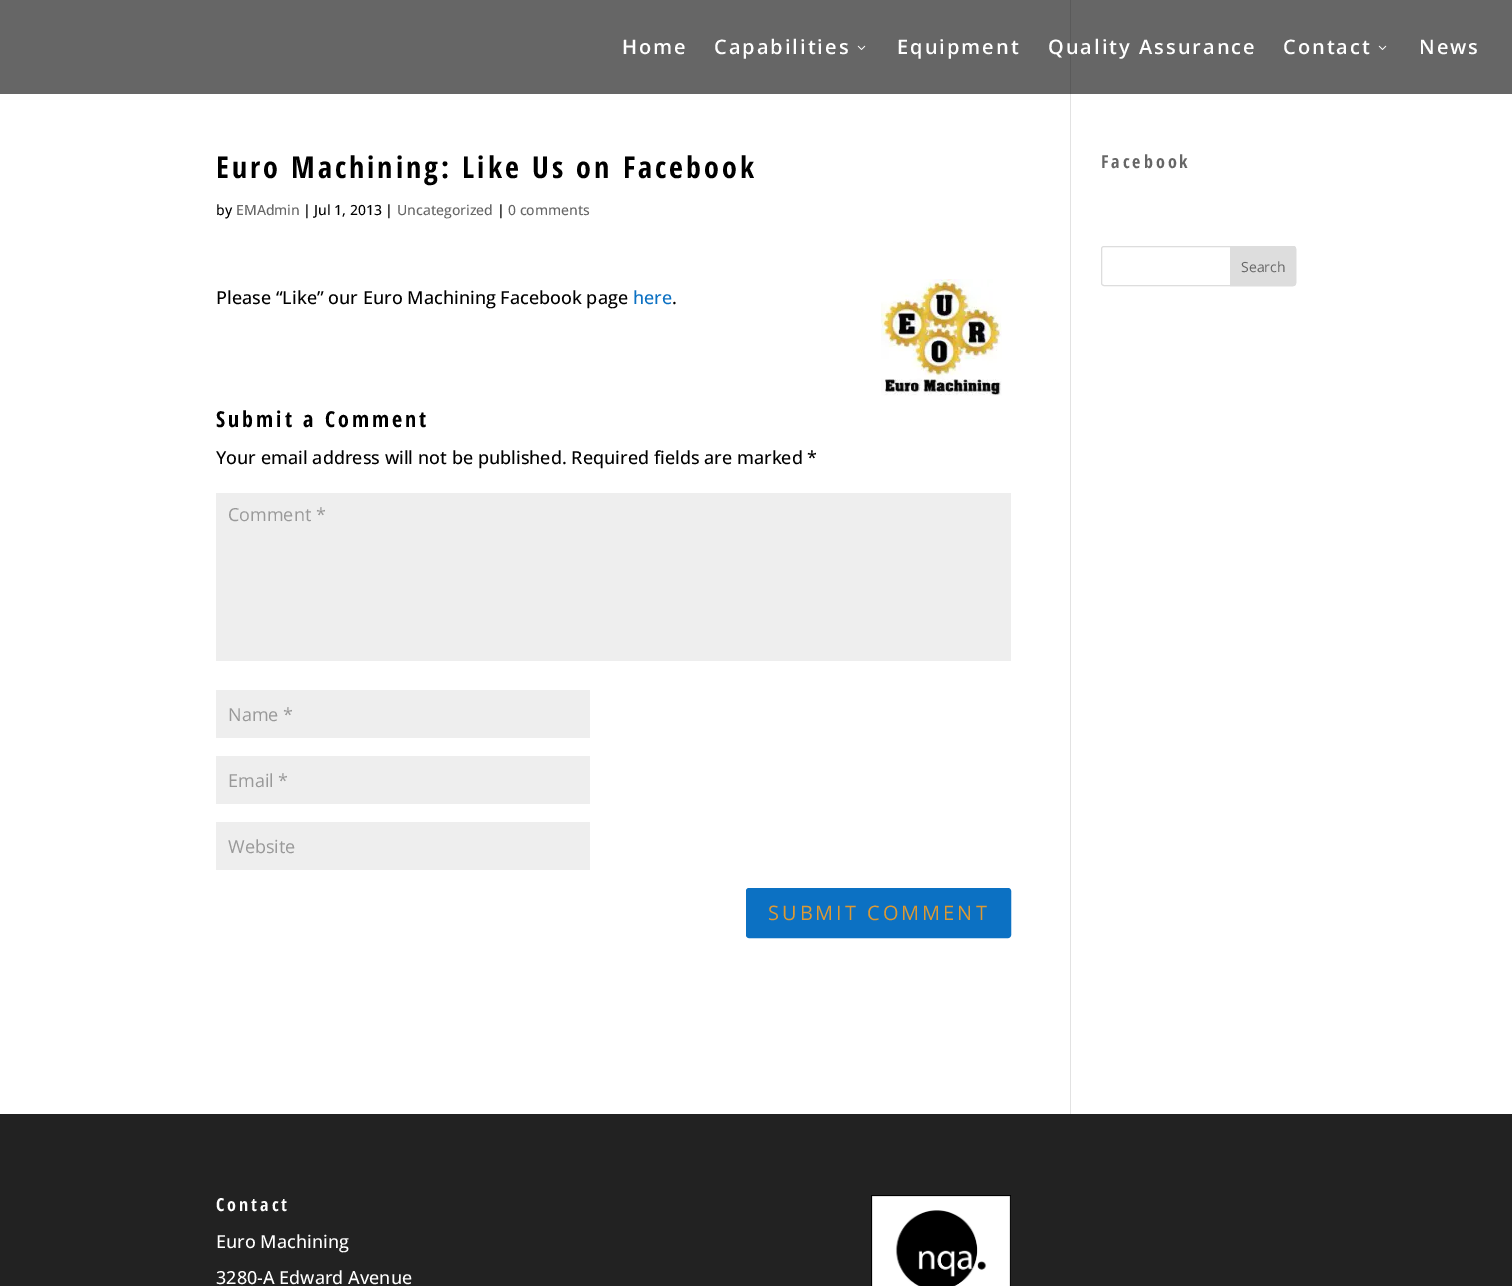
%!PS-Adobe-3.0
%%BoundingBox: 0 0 1512 1286
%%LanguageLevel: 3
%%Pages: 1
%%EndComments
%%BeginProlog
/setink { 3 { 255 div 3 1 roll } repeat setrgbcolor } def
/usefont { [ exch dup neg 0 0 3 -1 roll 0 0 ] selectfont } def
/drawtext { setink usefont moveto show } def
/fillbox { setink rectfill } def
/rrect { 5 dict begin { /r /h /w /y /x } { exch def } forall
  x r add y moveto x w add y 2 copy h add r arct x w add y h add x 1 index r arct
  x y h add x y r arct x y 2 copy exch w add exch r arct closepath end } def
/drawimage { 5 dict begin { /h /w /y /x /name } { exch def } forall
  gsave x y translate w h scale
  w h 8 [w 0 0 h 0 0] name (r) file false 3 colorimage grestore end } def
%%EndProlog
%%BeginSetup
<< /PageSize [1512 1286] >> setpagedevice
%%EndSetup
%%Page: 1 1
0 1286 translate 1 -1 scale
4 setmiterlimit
0 0 1512 1286 255 255 255 fillbox
0 0 1512 94 102 102 102 fillbox
/OpenSans-SemiBold 20 usefont
255 255 255 setink
622 54 moveto 2 0 (Home) ashow
714 54 moveto 2 0 (Capabilities) ashow
(assets/img1.rgb) 857 45 9 5 drawimage
897 54 moveto 2 0 (Equipment) ashow
1070 0 1 94 90 90 90 fillbox
255 255 255 setink
1048 54 moveto 2 0 (Quality Assurance) ashow
1283 54 moveto 2 0 (Contact) ashow
(assets/img1.rgb) 1378 45 9 5 drawimage
1419 54 moveto 2 0 (News) ashow
1070 94 1 1020 226 226 226 fillbox
/OpenSansCondensed-Bold 30 usefont
0 0 0 setink
216 178 moveto 3 0 (Euro Machining: Like Us on Facebook) ashow
(by) 216 215 /OpenSans-Medium 14 0 0 0 drawtext
(EMAdmin) 236 215 /OpenSans-Medium 14 102 102 102 drawtext
(| Jul 1, 2013 |) 303 215 /OpenSans-Medium 14 0 0 0 drawtext
(Uncategorized) 397 215 /OpenSans-Medium 14 102 102 102 drawtext
(|) 497 215 /OpenSans-Medium 14 0 0 0 drawtext
(0 comments) 508 215 /OpenSans-Medium 14 102 102 102 drawtext
(Please “Like” our Euro Machining Facebook page) 216 304 /OpenSans-Medium 18 0 0 0 drawtext
(here) 633 304 /OpenSans-Medium 18 12 113 195 drawtext
(.) 672 304 /OpenSans-Medium 18 0 0 0 drawtext
(assets/img2.rgb) 881 279 121 117 drawimage
/OpenSansCondensed-Bold 22 usefont
216 427 moveto 3 0 (Submit a Comment) ashow
(Your email address will not be published. Required fields are marked *) 216 464 /OpenSans-Medium 18 0 0 0 drawtext
216 493 795 168 238 238 238 fillbox
(Comment *) 228 521 /OpenSans-Regular 18 153 153 153 drawtext
216 690 374 48 238 238 238 fillbox
(Name *) 228 721 /OpenSans-Regular 18 153 153 153 drawtext
216 756 374 48 238 238 238 fillbox
(Email *) 228 787 /OpenSans-Regular 18 153 153 153 drawtext
216 822 374 48 238 238 238 fillbox
(Website) 228 853 /OpenSans-Regular 18 153 153 153 drawtext
12 113 195 setink
747 889 263 48 2 rrect gsave fill grestore
2 setlinewidth
stroke
/OpenSans-Regular 20 usefont
221 153 51 setink
768 920 moveto 3 0 (SUBMIT COMMENT) ashow
/OpenSansCondensed-Bold 18 usefont
102 102 102 setink
1101 168 moveto 3 0 (Facebook) ashow
221 221 221 setink
1 setlinewidth
1101.5 246.5 194 39 2.5 rrect stroke
1230.5 246.5 moveto 1293 246.5 lineto 1294.5 246.5 1295.5 247.5 1295.5 249 curveto 1295.5 283 lineto 1295.5 284.5 1294.5 285.5 1293 285.5 curveto 1230.5 285.5 lineto closepath gsave fill grestore
stroke
(Search) 1241 272 /OpenSans-Regular 14 102 102 102 drawtext
0 1114 1512 172 34 34 34 fillbox
/OpenSansCondensed-Bold 18 usefont
255 255 255 setink
216 1211 moveto 3 0 (Contact) ashow
(Euro Machining) 216 1248 /OpenSans-Medium 18 255 255 255 drawtext
(3280-A Edward Avenue) 216 1284 /OpenSans-Medium 18 255 255 255 drawtext
(assets/img3.rgb) 871 1195 140 91 drawimage
showpage
%%EOF
